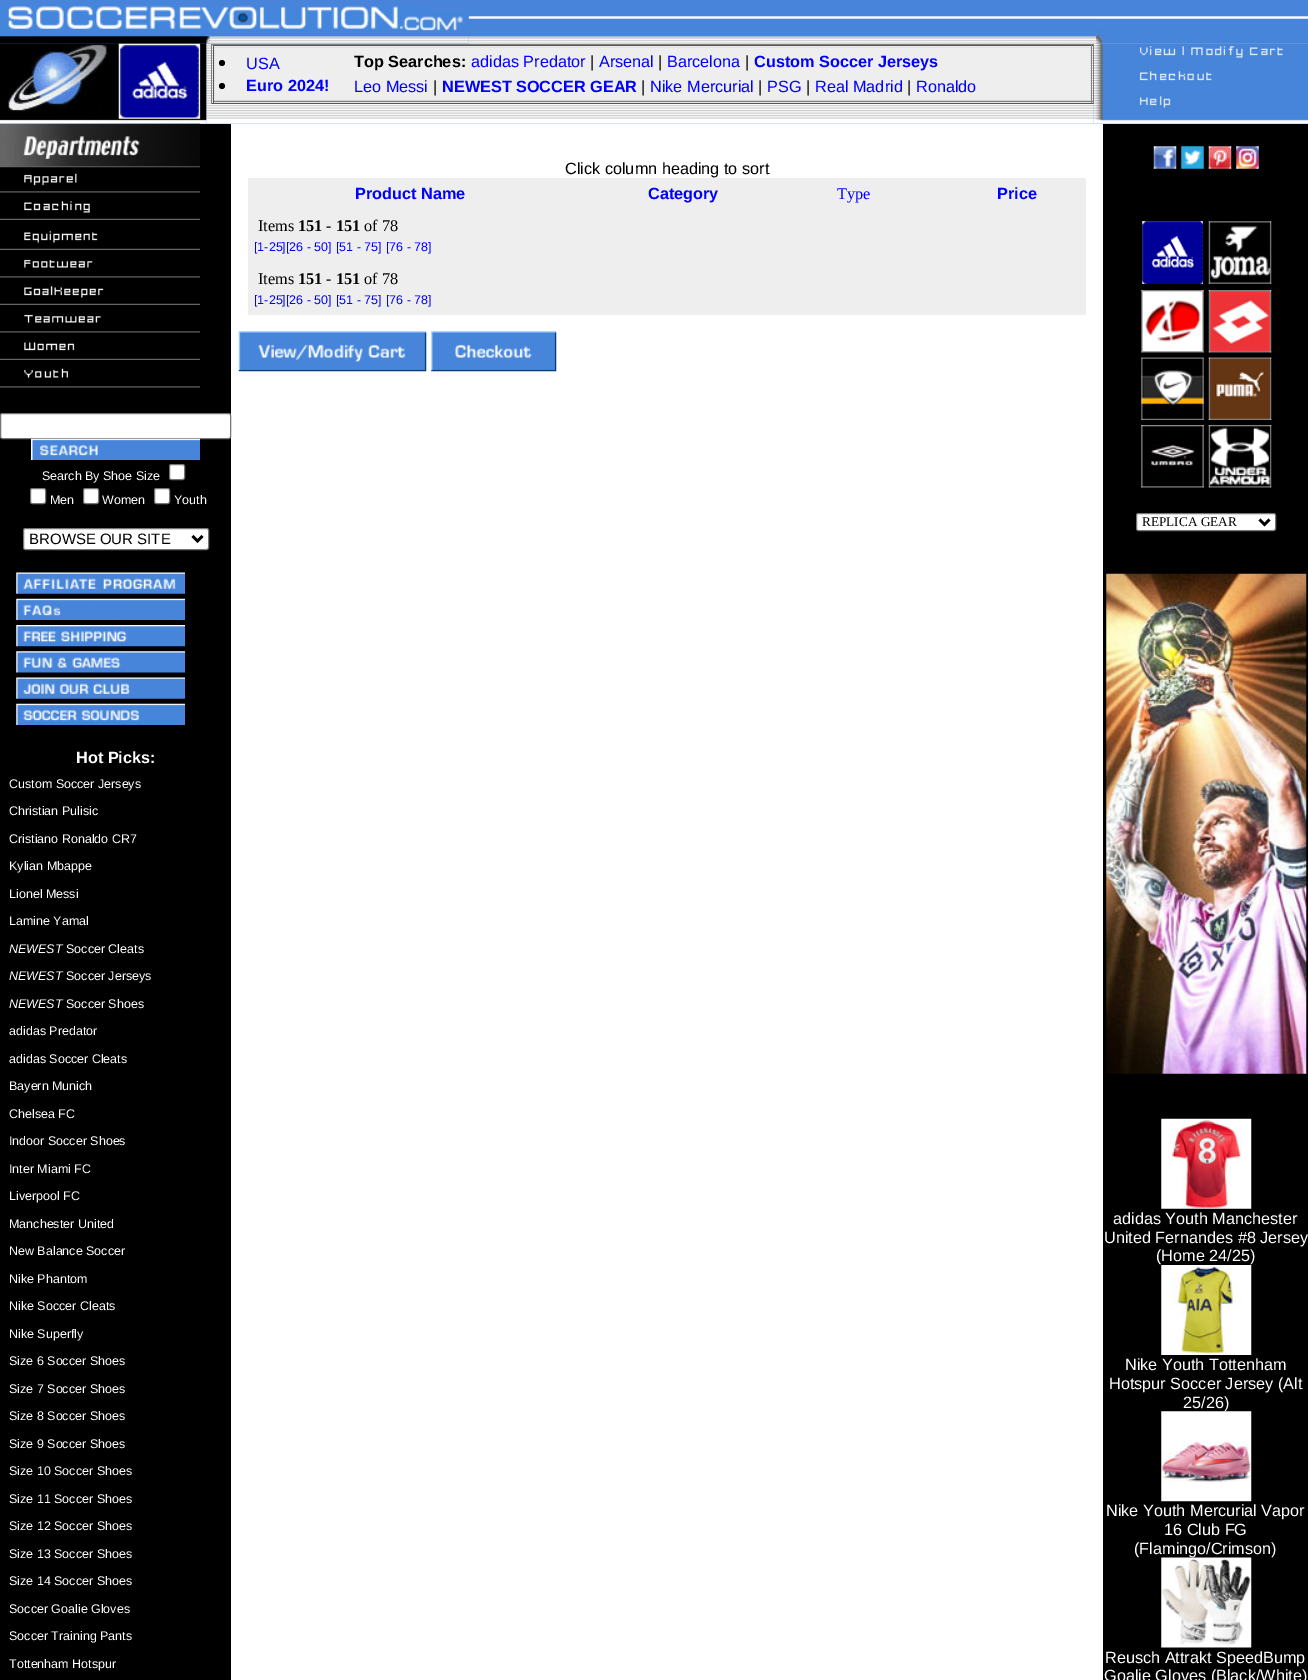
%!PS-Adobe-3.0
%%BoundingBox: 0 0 1308 1680
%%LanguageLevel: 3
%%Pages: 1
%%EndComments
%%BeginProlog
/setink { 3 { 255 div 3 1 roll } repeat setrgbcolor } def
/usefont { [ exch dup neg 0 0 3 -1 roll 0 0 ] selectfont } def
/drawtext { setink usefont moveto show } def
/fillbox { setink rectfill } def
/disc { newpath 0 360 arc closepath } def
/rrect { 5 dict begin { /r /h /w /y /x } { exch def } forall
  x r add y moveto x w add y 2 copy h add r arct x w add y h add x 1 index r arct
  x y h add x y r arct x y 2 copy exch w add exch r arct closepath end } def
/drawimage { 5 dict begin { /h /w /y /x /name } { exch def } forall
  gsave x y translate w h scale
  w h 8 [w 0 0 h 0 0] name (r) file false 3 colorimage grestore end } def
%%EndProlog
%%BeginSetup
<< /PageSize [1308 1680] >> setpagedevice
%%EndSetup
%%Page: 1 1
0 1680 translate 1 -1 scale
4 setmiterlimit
0 0 1308 1680 72 132 218 fillbox
(assets/img2.rgb) 468 14 840 30 drawimage
(assets/img5.rgb) 206 43 888 81 drawimage
(assets/img1.rgb) 0 6 469 38 drawimage
(assets/img3.rgb) 1096 18 212 26 drawimage
(assets/img4.rgb) 0 43 207 81 drawimage
211 44 883 1 128 128 128 fillbox
1093 44 1 60 85 85 85 fillbox
211 103 883 1 85 85 85 fillbox
211 44 1 60 128 128 128 fillbox
213 45 880 1 85 85 85 fillbox
1091 45 1 58 128 128 128 fillbox
213 101 880 1 128 128 128 fillbox
213 45 1 58 85 85 85 fillbox
215 48 875 52 238 238 238 fillbox
0 0 0 setink
222 63 3 disc fill
(USA) 246 69 /LiberationSans-Regular 16.25 0 0 255 drawtext
0 0 0 setink
222 86 3 disc fill
(Euro 2024!) 246 91 /LiberationSans-Bold 16.25 0 0 255 drawtext
(Top Searches:) 354 67 /LiberationSans-Bold 16.25 0 0 0 drawtext
(adidas Predator) 471 67 /LiberationSans-Regular 16.25 0 0 255 drawtext
(|) 590 67 /LiberationSans-Regular 16.25 0 0 0 drawtext
(Arsenal) 599 67 /LiberationSans-Regular 16.25 0 0 255 drawtext
(|) 658 67 /LiberationSans-Regular 16.25 0 0 0 drawtext
(Barcelona) 667 67 /LiberationSans-Regular 16.25 0 0 255 drawtext
(|) 745 67 /LiberationSans-Regular 16.25 0 0 0 drawtext
(Custom Soccer Jerseys) 754 67 /LiberationSans-Bold 16.25 0 0 255 drawtext
(Leo Messi) 354 92 /LiberationSans-Regular 16.25 0 0 255 drawtext
(|) 433 92 /LiberationSans-Regular 16.25 0 0 0 drawtext
(NEWEST SOCCER GEAR) 442 92 /LiberationSans-Bold 16.25 0 0 255 drawtext
(|) 641 92 /LiberationSans-Regular 16.25 0 0 0 drawtext
(Nike Mercurial) 650 92 /LiberationSans-Regular 16.25 0 0 255 drawtext
(|) 758 92 /LiberationSans-Regular 16.25 0 0 0 drawtext
(PSG) 767 92 /LiberationSans-Regular 16.25 0 0 255 drawtext
(|) 806 92 /LiberationSans-Regular 16.25 0 0 0 drawtext
(Real Madrid) 815 92 /LiberationSans-Regular 16.25 0 0 255 drawtext
(|) 907 92 /LiberationSans-Regular 16.25 0 0 0 drawtext
(Ronaldo) 916 92 /LiberationSans-Regular 16.25 0 0 255 drawtext
(assets/img6.rgb) 1093 43 215 81 drawimage
231 124 872 1556 255 255 255 fillbox
(Click column heading to sort) 565 174 /LiberationSans-Regular 16.25 0 0 0 drawtext
248 178 838 137 238 238 238 fillbox
(Product Name) 355 199 /LiberationSans-Bold 16.25 0 0 255 drawtext
(Category) 648 199 /LiberationSans-Bold 16.25 0 0 255 drawtext
(Type) 837 199 /LiberationSerif-Regular 16.25 0 0 255 drawtext
(Price) 997 199 /LiberationSans-Bold 16.25 0 0 255 drawtext
(Items) 258 231 /LiberationSerif-Regular 16.25 0 0 0 drawtext
(151 - 151) 298 231 /LiberationSerif-Bold 16.25 0 0 0 drawtext
(of 78) 364 231 /LiberationSerif-Regular 16.25 0 0 0 drawtext
([1-25][26 - 50]) 254 251 /LiberationSans-Regular 12.5 0 0 255 drawtext
([51 - 75]) 336 251 /LiberationSans-Regular 12.5 0 0 255 drawtext
([76 - 78]) 386 251 /LiberationSans-Regular 12.5 0 0 255 drawtext
(Items) 258 284 /LiberationSerif-Regular 16.25 0 0 0 drawtext
(151 - 151) 298 284 /LiberationSerif-Bold 16.25 0 0 0 drawtext
(of 78) 364 284 /LiberationSerif-Regular 16.25 0 0 0 drawtext
([1-25][26 - 50]) 254 304 /LiberationSans-Regular 12.5 0 0 255 drawtext
([51 - 75]) 336 304 /LiberationSans-Regular 12.5 0 0 255 drawtext
([76 - 78]) 386 304 /LiberationSans-Regular 12.5 0 0 255 drawtext
(assets/img7.rgb) 238 331 189 41 drawimage
(assets/img8.rgb) 431 331 126 41 drawimage
0 124 231 1556 0 0 0 fillbox
(assets/img9.rgb) 0 123 200 45 drawimage
(assets/img10.rgb) 0 167 200 26 drawimage
(assets/img11.rgb) 0 201 200 19 drawimage
(assets/img12.rgb) 0 231 200 19 drawimage
(assets/img13.rgb) 0 259 200 19 drawimage
(assets/img14.rgb) 0 286 200 19 drawimage
(assets/img15.rgb) 0 314 200 19 drawimage
(assets/img16.rgb) 0 342 200 18 drawimage
(assets/img17.rgb) 0 368 200 20 drawimage
255 255 255 setink
0.5 413.5 230 25 2 rrect gsave fill grestore
118 118 118 setink
stroke
(assets/img18.rgb) 31 438 169 22 drawimage
(Search By Shoe Size) 42 480 /LiberationSans-Regular 12.5 255 255 255 drawtext
169.5 464.5 15 15 2 rrect gsave fill grestore
118 118 118 setink
stroke
255 255 255 setink
30.5 488.5 15 15 2 rrect gsave fill grestore
118 118 118 setink
stroke
(Men) 50 504 /LiberationSans-Regular 12.5 255 255 255 drawtext
83.5 488.5 15 15 2 rrect gsave fill grestore
118 118 118 setink
stroke
(Women) 102 504 /LiberationSans-Regular 12.5 255 255 255 drawtext
154.5 488.5 15 15 2 rrect gsave fill grestore
118 118 118 setink
stroke
(Youth) 174 504 /LiberationSans-Regular 12.5 255 255 255 drawtext
23.5 528.5 185 21 2 rrect gsave fill grestore
118 118 118 setink
stroke
0 0 0 setink
2.5 setlinewidth
192.5 536 moveto 197.5 541 lineto 202.5 536 lineto stroke
(BROWSE OUR SITE) 29 544 /LiberationSans-Regular 15 0 0 0 drawtext
(assets/img19.rgb) 16 572 169 22 drawimage
(assets/img20.rgb) 16 598 169 22 drawimage
(assets/img21.rgb) 16 625 169 22 drawimage
(assets/img22.rgb) 16 651 169 22 drawimage
(assets/img23.rgb) 16 677 169 22 drawimage
(assets/img24.rgb) 16 703 169 22 drawimage
(Hot Picks:) 76 763 /LiberationSans-Bold 16.25 255 255 255 drawtext
(Custom Soccer Jerseys) 9 788 /LiberationSans-Regular 12.5 255 255 255 drawtext
(Christian Pulisic) 9 815 /LiberationSans-Regular 12.5 255 255 255 drawtext
(Cristiano Ronaldo CR7) 9 843 /LiberationSans-Regular 12.5 255 255 255 drawtext
(Kylian Mbappe) 9 870 /LiberationSans-Regular 12.5 255 255 255 drawtext
(Lionel Messi) 9 898 /LiberationSans-Regular 12.5 255 255 255 drawtext
(Lamine Yamal) 9 925 /LiberationSans-Regular 12.5 255 255 255 drawtext
(NEWEST) 9 953 /LiberationSans-Italic 12.5 255 255 255 drawtext
(Soccer Cleats) 66 953 /LiberationSans-Regular 12.5 255 255 255 drawtext
(NEWEST) 9 980 /LiberationSans-Italic 12.5 255 255 255 drawtext
(Soccer Jerseys) 66 980 /LiberationSans-Regular 12.5 255 255 255 drawtext
(NEWEST) 9 1008 /LiberationSans-Italic 12.5 255 255 255 drawtext
(Soccer Shoes) 66 1008 /LiberationSans-Regular 12.5 255 255 255 drawtext
(adidas Predator) 9 1035 /LiberationSans-Regular 12.5 255 255 255 drawtext
(adidas Soccer Cleats) 9 1063 /LiberationSans-Regular 12.5 255 255 255 drawtext
(Bayern Munich) 9 1090 /LiberationSans-Regular 12.5 255 255 255 drawtext
(Chelsea FC) 9 1118 /LiberationSans-Regular 12.5 255 255 255 drawtext
(Indoor Soccer Shoes) 9 1145 /LiberationSans-Regular 12.5 255 255 255 drawtext
(Inter Miami FC) 9 1173 /LiberationSans-Regular 12.5 255 255 255 drawtext
(Liverpool FC) 9 1200 /LiberationSans-Regular 12.5 255 255 255 drawtext
(Manchester United) 9 1228 /LiberationSans-Regular 12.5 255 255 255 drawtext
(New Balance Soccer) 9 1255 /LiberationSans-Regular 12.5 255 255 255 drawtext
(Nike Phantom) 9 1283 /LiberationSans-Regular 12.5 255 255 255 drawtext
(Nike Soccer Cleats) 9 1310 /LiberationSans-Regular 12.5 255 255 255 drawtext
(Nike Superfly) 9 1338 /LiberationSans-Regular 12.5 255 255 255 drawtext
(Size 6 Soccer Shoes) 9 1365 /LiberationSans-Regular 12.5 255 255 255 drawtext
(Size 7 Soccer Shoes) 9 1393 /LiberationSans-Regular 12.5 255 255 255 drawtext
(Size 8 Soccer Shoes) 9 1420 /LiberationSans-Regular 12.5 255 255 255 drawtext
(Size 9 Soccer Shoes) 9 1448 /LiberationSans-Regular 12.5 255 255 255 drawtext
(Size 10 Soccer Shoes) 9 1475 /LiberationSans-Regular 12.5 255 255 255 drawtext
(Size 11 Soccer Shoes) 9 1503 /LiberationSans-Regular 12.5 255 255 255 drawtext
(Size 12 Soccer Shoes) 9 1530 /LiberationSans-Regular 12.5 255 255 255 drawtext
(Size 13 Soccer Shoes) 9 1558 /LiberationSans-Regular 12.5 255 255 255 drawtext
(Size 14 Soccer Shoes) 9 1585 /LiberationSans-Regular 12.5 255 255 255 drawtext
(Soccer Goalie Gloves) 9 1613 /LiberationSans-Regular 12.5 255 255 255 drawtext
(Soccer Training Pants) 9 1640 /LiberationSans-Regular 12.5 255 255 255 drawtext
(Tottenham Hotspur) 9 1668 /LiberationSans-Regular 12.5 255 255 255 drawtext
1103 124 205 1556 0 0 0 fillbox
(assets/img25.rgb) 1153 146 24 23 drawimage
(assets/img26.rgb) 1181 146 23 23 drawimage
(assets/img27.rgb) 1208 146 24 23 drawimage
(assets/img28.rgb) 1236 146 23 23 drawimage
(assets/img29.rgb) 1142 221 61 63 drawimage
(assets/img30.rgb) 1208 221 64 63 drawimage
(assets/img31.rgb) 1141 290 63 63 drawimage
(assets/img32.rgb) 1208 290 64 63 drawimage
(assets/img33.rgb) 1141 357 63 63 drawimage
(assets/img34.rgb) 1208 357 64 63 drawimage
(assets/img35.rgb) 1141 425 63 63 drawimage
(assets/img36.rgb) 1208 425 64 63 drawimage
255 255 255 setink
1136.5 513.5 139 17 2 rrect gsave fill grestore
118 118 118 setink
1 setlinewidth
stroke
0 0 0 setink
2.5 setlinewidth
1259.5 519.5 moveto 1264.5 524.5 lineto 1269.5 519.5 lineto stroke
(REPLICA GEAR) 1142 526 /LiberationSerif-Regular 13.25 0 0 0 drawtext
(assets/img37.rgb) 1106 573 201 501 drawimage
(assets/img38.rgb) 1161 1118 91 91 drawimage
(adidas Youth Manchester) 1113 1224 /LiberationSans-Regular 16.25 255 255 255 drawtext
(United Fernandes #8 Jersey) 1104 1243 /LiberationSans-Regular 16.25 255 255 255 drawtext
(\(Home 24/25\)) 1156 1261 /LiberationSans-Regular 16.25 255 255 255 drawtext
(assets/img39.rgb) 1161 1265 91 90 drawimage
(Nike Youth Tottenham) 1125 1370 /LiberationSans-Regular 16.25 255 255 255 drawtext
(Hotspur Soccer Jersey \(Alt) 1109 1389 /LiberationSans-Regular 16.25 255 255 255 drawtext
(25/26\)) 1183 1408 /LiberationSans-Regular 16.25 255 255 255 drawtext
(assets/img40.rgb) 1161 1411 91 91 drawimage
(Nike Youth Mercurial Vapor) 1106 1516 /LiberationSans-Regular 16.25 255 255 255 drawtext
(16 Club FG) 1164 1535 /LiberationSans-Regular 16.25 255 255 255 drawtext
(\(Flamingo/Crimson\)) 1134 1554 /LiberationSans-Regular 16.25 255 255 255 drawtext
(assets/img41.rgb) 1161 1557 91 91 drawimage
(Reusch Attrakt SpeedBump) 1105 1663 /LiberationSans-Regular 16.25 255 255 255 drawtext
(Goalie Gloves \(Black/White\)) 1104 1681 /LiberationSans-Regular 16.25 255 255 255 drawtext
showpage
%%EOF
